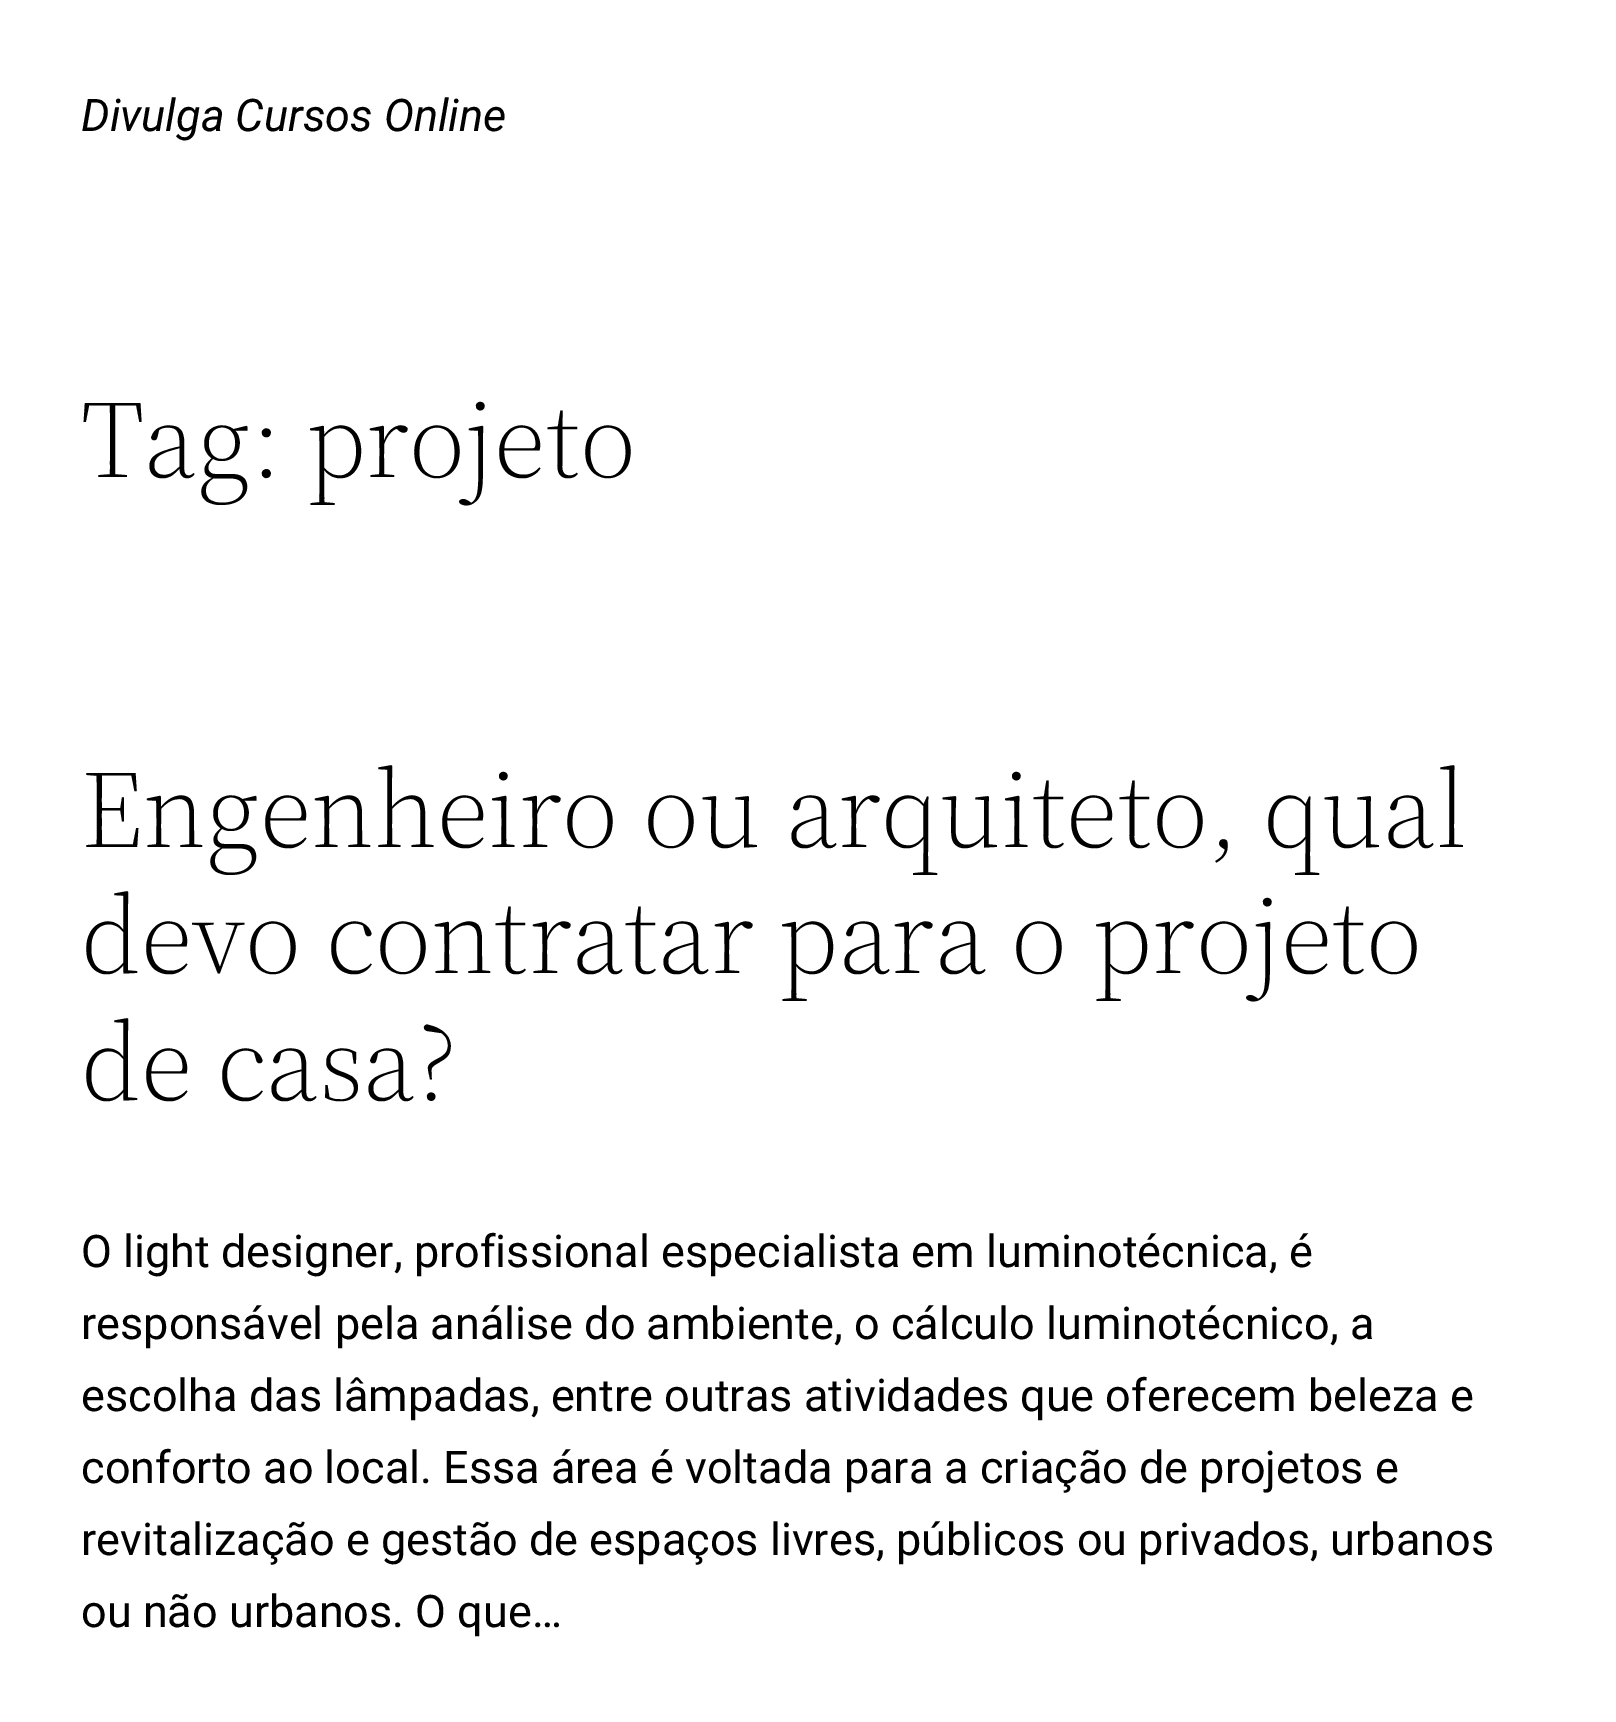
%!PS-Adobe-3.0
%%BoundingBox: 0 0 1616 1722
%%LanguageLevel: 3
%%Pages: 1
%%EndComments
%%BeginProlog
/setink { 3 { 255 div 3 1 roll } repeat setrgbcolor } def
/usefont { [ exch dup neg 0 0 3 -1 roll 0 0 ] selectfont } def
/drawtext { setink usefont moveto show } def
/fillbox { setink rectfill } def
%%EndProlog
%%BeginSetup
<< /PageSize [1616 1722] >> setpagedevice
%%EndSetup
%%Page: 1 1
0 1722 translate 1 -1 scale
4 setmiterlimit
0 0 1616 1722 255 255 255 fillbox
(Divulga Cursos Online) 81 131 /Roboto-Italic 45 0 0 0 drawtext
(Tag: projeto) 81 477 /SourceSerif4-Light 110 0 0 0 drawtext
(Engenheiro ou arquiteto, qual) 81 847 /SourceSerif4-Light 110 0 0 0 drawtext
(devo contratar para o projeto) 81 973 /SourceSerif4-Light 110 0 0 0 drawtext
(de casa?) 81 1100 /SourceSerif4-Light 110 0 0 0 drawtext
(O light designer, profissional especialista em luminotécnica, é) 81 1267 /Roboto-Regular 45 0 0 0 drawtext
(responsável pela análise do ambiente, o cálculo luminotécnico, a) 81 1339 /Roboto-Regular 45 0 0 0 drawtext
(escolha das lâmpadas, entre outras atividades que oferecem beleza e) 81 1411 /Roboto-Regular 45 0 0 0 drawtext
(conforto ao local. Essa área é voltada para a criação de projetos e) 81 1483 /Roboto-Regular 45 0 0 0 drawtext
(revitalização e gestão de espaços livres, públicos ou privados, urbanos) 81 1555 /Roboto-Regular 45 0 0 0 drawtext
(ou não urbanos. O que…) 81 1627 /Roboto-Regular 45 0 0 0 drawtext
showpage
%%EOF
